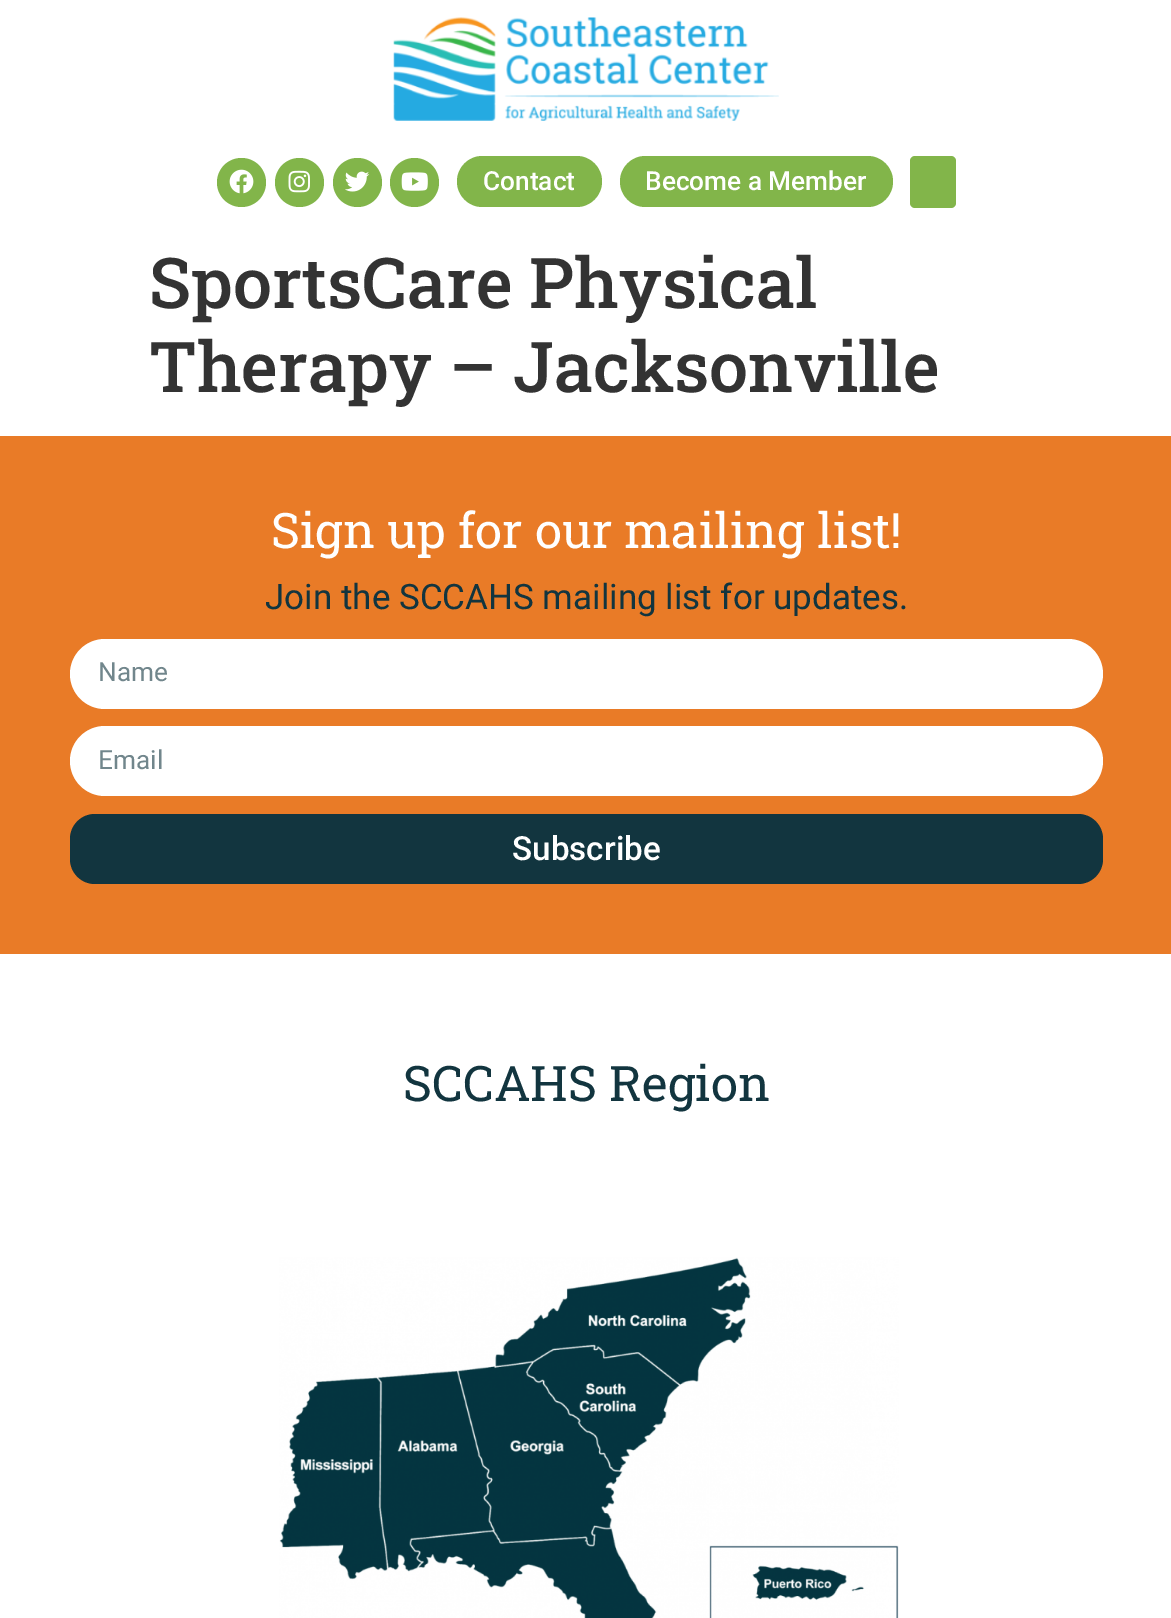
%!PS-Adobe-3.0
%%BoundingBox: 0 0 1171 1618
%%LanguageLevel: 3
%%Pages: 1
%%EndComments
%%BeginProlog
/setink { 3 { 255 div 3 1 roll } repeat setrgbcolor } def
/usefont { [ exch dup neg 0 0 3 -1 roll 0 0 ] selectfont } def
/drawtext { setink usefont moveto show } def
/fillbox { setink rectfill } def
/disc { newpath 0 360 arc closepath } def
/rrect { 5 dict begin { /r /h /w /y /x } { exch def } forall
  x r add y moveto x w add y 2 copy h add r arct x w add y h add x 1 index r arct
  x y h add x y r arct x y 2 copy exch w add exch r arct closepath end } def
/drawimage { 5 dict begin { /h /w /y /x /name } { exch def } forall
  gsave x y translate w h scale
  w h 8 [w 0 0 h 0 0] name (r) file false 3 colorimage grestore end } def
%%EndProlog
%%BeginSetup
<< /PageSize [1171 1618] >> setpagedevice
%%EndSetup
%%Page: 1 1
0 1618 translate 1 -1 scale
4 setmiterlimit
0 0 1171 1618 255 255 255 fillbox
(assets/img1.rgb) 393 17 386 104 drawimage
130 181 74 setink
241.5 182.5 24.5 disc fill
(assets/img2.rgb) 229 169 25 25 drawimage
299.5 182.5 24.5 disc fill
(assets/img3.rgb) 288 170 22 23 drawimage
357.5 182.5 24.5 disc fill
(assets/img4.rgb) 345 171 25 21 drawimage
414.5 182.5 24.5 disc fill
(assets/img5.rgb) 401 172 27 19 drawimage
457 156 145 51 25.5 rrect fill
(Contact) 483 190 /Roboto-Medium 26.25 255 255 255 drawtext
130 181 74 setink
620 156 273 51 25.5 rrect fill
(Become a Member) 645 190 /Roboto-Medium 26.25 255 255 255 drawtext
130 181 74 setink
910 156 46 52 5 rrect fill
(SportsCare Physical) 149 308 /RobotoSlab-Medium 70 51 51 51 drawtext
(Therapy – Jacksonville) 149 392 /RobotoSlab-Medium 70 51 51 51 drawtext
0 436 1171 518 233 123 39 fillbox
(Sign up for our mailing list!) 271 548 /RobotoSlab-Regular 49 255 255 255 drawtext
(Join the SCCAHS mailing list for updates.) 265 609 /Roboto-Regular 35 18 53 63 drawtext
255 255 255 setink
70 639 1033 70 35 rrect fill
(Name) 98 681 /Roboto-Regular 26.25 113 134 140 drawtext
255 255 255 setink
70 726 1033 70 35 rrect fill
(Email) 98 769 /Roboto-Regular 26.25 113 134 140 drawtext
18 53 63 setink
70 814 1033 70 25 rrect fill
(Subscribe) 512 860 /Roboto-Medium 33.25 255 255 255 drawtext
(SCCAHS Region) 403 1101 /RobotoSlab-Regular 49 18 53 63 drawtext
(assets/img6.rgb) 279 1257 620 361 drawimage
showpage
%%EOF
